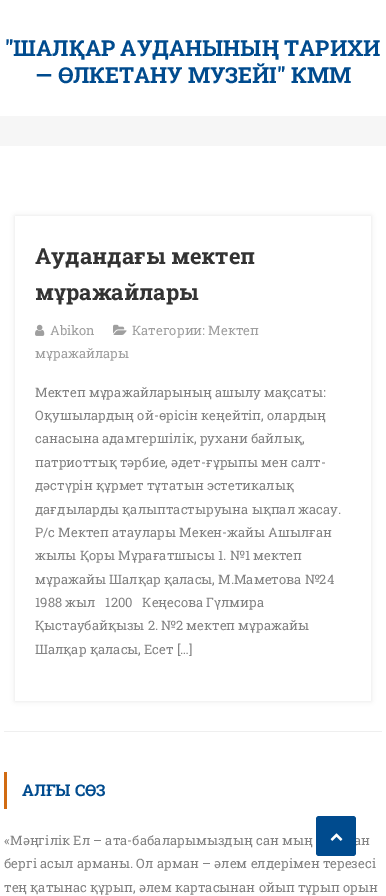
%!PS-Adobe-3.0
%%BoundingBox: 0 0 386 896
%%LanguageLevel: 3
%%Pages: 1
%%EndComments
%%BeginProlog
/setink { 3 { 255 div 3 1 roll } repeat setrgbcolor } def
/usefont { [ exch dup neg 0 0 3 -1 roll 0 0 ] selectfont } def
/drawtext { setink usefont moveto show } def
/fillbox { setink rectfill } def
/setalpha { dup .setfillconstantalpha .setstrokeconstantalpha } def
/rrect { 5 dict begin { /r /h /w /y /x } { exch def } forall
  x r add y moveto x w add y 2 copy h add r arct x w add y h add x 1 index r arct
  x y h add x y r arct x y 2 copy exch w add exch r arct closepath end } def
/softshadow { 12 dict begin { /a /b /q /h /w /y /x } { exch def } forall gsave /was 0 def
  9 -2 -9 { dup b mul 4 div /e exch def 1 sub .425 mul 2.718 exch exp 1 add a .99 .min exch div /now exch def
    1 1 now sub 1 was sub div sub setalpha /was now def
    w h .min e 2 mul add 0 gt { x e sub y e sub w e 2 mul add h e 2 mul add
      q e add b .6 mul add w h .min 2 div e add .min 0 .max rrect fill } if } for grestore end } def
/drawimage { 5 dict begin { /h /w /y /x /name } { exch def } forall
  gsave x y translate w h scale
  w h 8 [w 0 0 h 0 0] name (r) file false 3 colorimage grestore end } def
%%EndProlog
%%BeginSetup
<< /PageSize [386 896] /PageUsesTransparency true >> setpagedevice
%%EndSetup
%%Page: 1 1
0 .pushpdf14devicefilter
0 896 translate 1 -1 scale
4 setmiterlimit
0 0 386 896 255 255 255 fillbox
("ШАЛҚАР АУДАНЫНЫҢ ТАРИХИ) 5 56 /RobotoSlab-Bold 22 0 75 142 drawtext
(— ӨЛКЕТАНУ МУЗЕЙІ" КММ) 35 83 /RobotoSlab-Bold 22 0 75 142 drawtext
0 116 386 30 246 246 246 fillbox
4 731 378 1 239 239 239 fillbox
gsave
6 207 moveto 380 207 lineto 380 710 lineto 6 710 lineto closepath 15 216 moveto 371 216 lineto 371 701 lineto 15 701 lineto closepath eoclip newpath
0 0 0 setink
15 216 356 485 0 2.5 0.1 softshadow
grestore
(Аудандағы мектеп) 35 264 /RobotoSlab-Bold 22 51 51 51 drawtext
(мұражайлары) 35 300 /RobotoSlab-Bold 22 51 51 51 drawtext
(assets/img1.rgb) 35 324 10 12 drawimage
(Abikon) 50 335 /RobotoSlab-Regular 13 159 159 159 drawtext
(assets/img2.rgb) 113 324 14 11 drawimage
(Категории: Мектеп) 132 335 /RobotoSlab-Regular 13 159 159 159 drawtext
(мұражайлары) 35 358 /RobotoSlab-Regular 13 159 159 159 drawtext
(Мектеп мұражайларының ашылу мақсаты:) 35 397 /RobotoSlab-Regular 13 131 131 131 drawtext
(Оқушылардың ой-өрісін кеңейтіп, олардың) 35 420 /RobotoSlab-Regular 13 131 131 131 drawtext
(санасына адамгершілік, рухани байлық,) 35 443 /RobotoSlab-Regular 13 131 131 131 drawtext
(патриоттық тәрбие, әдет-ғұрыпы мен салт-) 35 467 /RobotoSlab-Regular 13 131 131 131 drawtext
(дәстүрін құрмет тұтатын эстетикалық) 35 490 /RobotoSlab-Regular 13 131 131 131 drawtext
(дағдыларды қалыптастыруына ықпал жасау.) 35 514 /RobotoSlab-Regular 13 131 131 131 drawtext
(Р/с Мектеп атаулары Мекен-жайы Ашылған) 35 537 /RobotoSlab-Regular 13 131 131 131 drawtext
(жылы Қоры Мұрағатшысы 1. №1 мектеп) 35 560 /RobotoSlab-Regular 13 131 131 131 drawtext
(мұражайы Шалқар қаласы, М.Маметова №24) 35 584 /RobotoSlab-Regular 13 131 131 131 drawtext
(1988 жыл   1200   Кеңесова Гүлмира) 35 607 /RobotoSlab-Regular 13 131 131 131 drawtext
(Қыстаубайқызы 2. №2 мектеп мұражайы) 35 630 /RobotoSlab-Regular 13 131 131 131 drawtext
(Шалқар қаласы, Есет […]) 35 654 /RobotoSlab-Regular 13 131 131 131 drawtext
4 772 3 37 209 107 18 fillbox
(АЛҒЫ СӨЗ) 22 796 /RobotoSlab-Bold 16 0 75 142 drawtext
(«Мәңгілік Ел – ата-бабаларымыздың сан мың) 4 845 /RobotoSlab-Regular 13 131 131 131 drawtext
(ан) 354 845 /RobotoSlab-Regular 13 131 131 131 drawtext
(бергі асыл арманы. Ол арман – әлем елдерімен терезесі) 4 868 /RobotoSlab-Regular 13 131 131 131 drawtext
(тең қатынас құрып, әлем картасынан ойып тұрып орын) 4 892 /RobotoSlab-Regular 13 131 131 131 drawtext
0 75 142 setink
316 816 40 40 3 rrect fill
(assets/img3.rgb) 330 833 13 8 drawimage
.poppdf14devicefilter showpage
%%EOF
